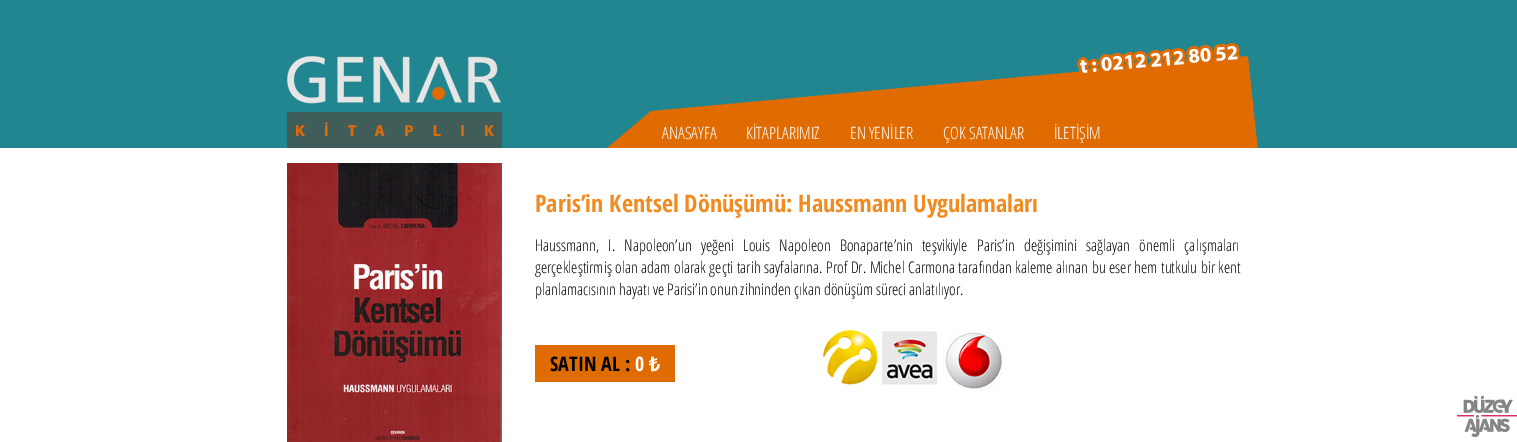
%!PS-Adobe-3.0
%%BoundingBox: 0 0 1517 442
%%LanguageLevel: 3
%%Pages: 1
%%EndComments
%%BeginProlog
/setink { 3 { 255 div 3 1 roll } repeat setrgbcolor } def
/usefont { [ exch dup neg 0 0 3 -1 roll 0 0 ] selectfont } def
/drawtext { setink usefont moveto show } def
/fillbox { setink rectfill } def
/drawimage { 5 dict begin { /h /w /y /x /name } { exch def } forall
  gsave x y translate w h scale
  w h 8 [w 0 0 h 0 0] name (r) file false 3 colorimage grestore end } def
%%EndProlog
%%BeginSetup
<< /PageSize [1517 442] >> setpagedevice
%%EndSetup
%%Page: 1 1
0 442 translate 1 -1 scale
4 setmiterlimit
0 0 1517 442 255 255 255 fillbox
0 0 1517 148 33 134 144 fillbox
(assets/img1.rgb) 287 56 215 92 drawimage
(assets/img2.rgb) 607 43 651 105 drawimage
(ANASAYFA) 662 139 /OpenSansCondensed-Light 17 255 255 255 drawtext
(KİTAPLARIMIZ) 746 139 /OpenSansCondensed-Light 17 255 255 255 drawtext
(EN YENİLER) 850 139 /OpenSansCondensed-Light 17 255 255 255 drawtext
(ÇOK SATANLAR) 943 139 /OpenSansCondensed-Light 17 255 255 255 drawtext
(İLETİŞİM) 1054 139 /OpenSansCondensed-Light 17 255 255 255 drawtext
(assets/img3.rgb) 287 163 215 279 drawimage
(Paris’in Kentsel Dönüşümü: Haussmann Uygulamaları) 535 212 /OpenSansCondensed-Bold 24 241 139 32 drawtext
/OpenSansCondensed-Light 16 usefont
0 0 0 setink
535 251 moveto 6.25 0 32 (Haussmann, I. Napoleon’un yeğeni Louis Napoleon Bonaparte’nin teşvikiyle Paris’in değişimini sağlayan önemli çalışmaları) widthshow
535 273 moveto 0.5 0 32 (gerçekleştirmiş olan adam olarak geçti tarih sayfalarına. Prof Dr. Michel Carmona tarafından kaleme alınan bu eser hem tutkulu bir kent) widthshow
(planlamacısının hayatı ve Parisi’in onun zihninden çıkan dönüşüm süreci anlatılıyor.) 535 295 /OpenSansCondensed-Light 16 0 0 0 drawtext
535 345 140 37 224 107 1 fillbox
(SATIN AL :) 550 371 /OpenSansCondensed-Bold 20 0 0 0 drawtext
(0) 635 371 /OpenSansCondensed-Bold 20 255 255 255 drawtext
(₺) 649 371 /NotoSans-Bold 20 255 255 255 drawtext
(assets/img4.rgb) 823 330 180 61 drawimage
(assets/img5.rgb) 1457 396 60 41 drawimage
showpage
%%EOF
